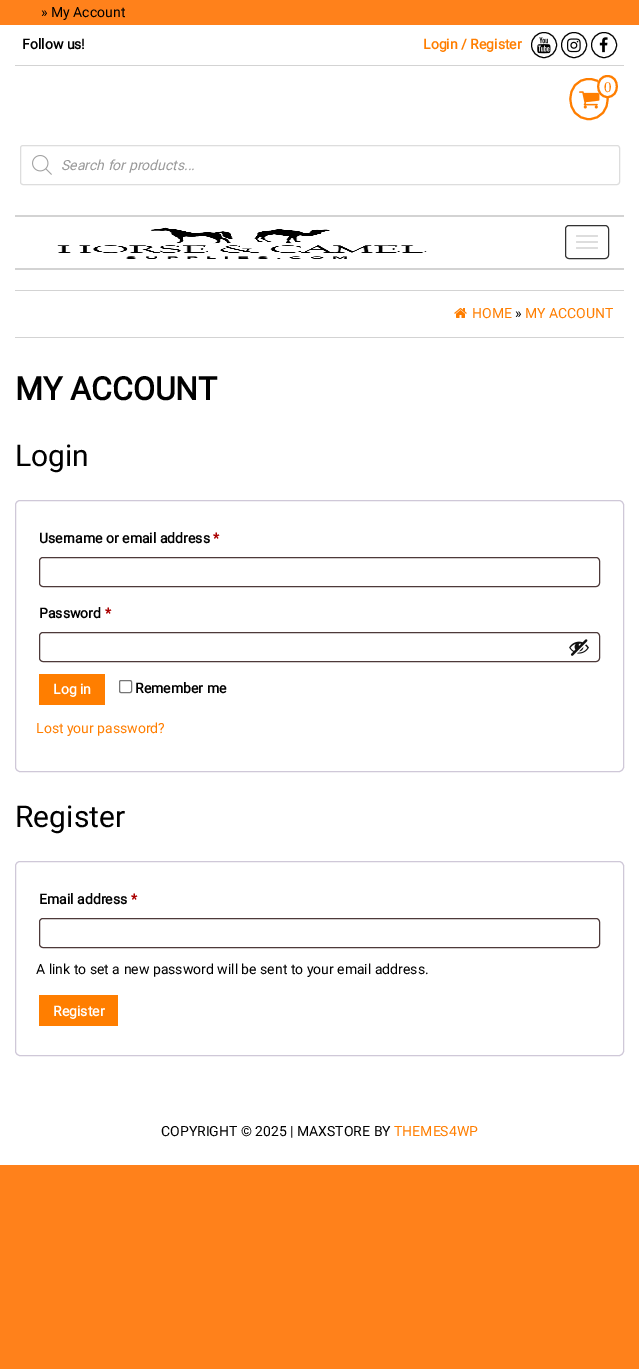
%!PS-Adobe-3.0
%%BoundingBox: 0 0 639 1369
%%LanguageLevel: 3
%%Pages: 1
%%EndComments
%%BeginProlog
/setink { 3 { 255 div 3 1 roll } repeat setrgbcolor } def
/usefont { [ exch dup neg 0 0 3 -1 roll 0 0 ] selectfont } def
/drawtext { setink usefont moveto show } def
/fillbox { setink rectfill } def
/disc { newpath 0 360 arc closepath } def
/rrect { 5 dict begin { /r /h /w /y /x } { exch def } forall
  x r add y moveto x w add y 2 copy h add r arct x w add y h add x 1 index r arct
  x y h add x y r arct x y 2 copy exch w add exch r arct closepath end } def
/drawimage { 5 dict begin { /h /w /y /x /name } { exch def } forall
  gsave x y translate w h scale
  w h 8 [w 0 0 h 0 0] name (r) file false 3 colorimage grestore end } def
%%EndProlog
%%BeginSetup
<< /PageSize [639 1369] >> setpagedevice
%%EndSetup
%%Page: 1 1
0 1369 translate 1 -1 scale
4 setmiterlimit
0 0 639 1369 255 129 27 fillbox
(» My Account) 41 17 /Roboto-Regular 14 0 0 0 drawtext
0 25 639 1140 255 255 255 fillbox
15 65 609 1 211 211 211 fillbox
(Follow us!) 22 49 /Roboto-Bold 14 0 0 0 drawtext
(Login / Register) 423 49 /Roboto-Bold 14 255 126 0 drawtext
0 0 0 setink
544 45 12.5 disc stroke
(assets/img1.rgb) 537 37 14 17 drawimage
574 45 12.5 disc stroke
(assets/img2.rgb) 567 38 14 15 drawimage
604 45 12.5 disc stroke
(assets/img3.rgb) 599 37 9 16 drawimage
15 215 609 2 211 211 211 fillbox
255 126 0 setink
2 setlinewidth
589 79 moveto 614 79 614 119 589 119 curveto 564 119 564 79 589 79 curveto closepath stroke
(assets/img4.rgb) 579 91 21 18 drawimage
255 255 255 setink
607.5 75 moveto 613.5 75 618 80 618 86.5 curveto 618 93 613.5 98 607.5 98 curveto 601.5 98 597 93 597 86.5 curveto 597 80 601.5 75 607.5 75 curveto closepath fill
255 126 0 setink
607.5 76 moveto 620 76 620 97 607.5 97 curveto 595 97 595 76 607.5 76 curveto closepath stroke
(0) 604 92 /LiberationSerif-Regular 15 255 126 0 drawtext
221 221 221 setink
1 setlinewidth
20.5 145.5 599 39 2.5 rrect stroke
(assets/img5.rgb) 32 155 20 20 drawimage
(Search for products...) 61 170 /Roboto-Italic 14 153 153 153 drawtext
15 268 609 2 211 211 211 fillbox
(assets/img6.rgb) 57 227 370 32 drawimage
51 51 51 setink
565.5 225.5 43 33 3.5 rrect stroke
221 221 221 setink
576 235 22 2 1 rrect fill
576 241 22 2 1 rrect fill
576 247 22 2 1 rrect fill
15 290 609 1 211 211 211 fillbox
15 337 609 1 211 211 211 fillbox
(assets/img7.rgb) 454 308 13 10 drawimage
(HOME) 472 318 /Roboto-Regular 14 255 126 0 drawtext
(») 515 318 /Roboto-Regular 14 0 0 0 drawtext
(MY ACCOUNT) 525 318 /Roboto-Regular 14 255 126 0 drawtext
(MY ACCOUNT) 15 400 /Roboto-Bold 32 0 0 0 drawtext
(Login) 15 466 /Roboto-Regular 30 0 0 0 drawtext
207 200 216 setink
15.5 500.5 608 271 4.5 rrect stroke
(Username or email address) 39 543 /Roboto-Bold 14 0 0 0 drawtext
(*) 213 543 /Roboto-Bold 14 170 0 0 drawtext
77 57 57 setink
39.5 557.5 560 29 3.5 rrect stroke
(Password) 39 618 /Roboto-Bold 14 0 0 0 drawtext
(*) 105 618 /Roboto-Bold 14 170 0 0 drawtext
77 57 57 setink
39.5 632.5 560 29 3.5 rrect stroke
(assets/img8.rgb) 569 639 20 17 drawimage
39 674 66 31 255 126 0 fillbox
(Log in) 53 694 /Roboto-Bold 14 255 255 255 drawtext
118 118 118 setink
119.5 680.5 12 12 1.5 rrect stroke
(Remember me) 135 693 /Roboto-Bold 14 0 0 0 drawtext
(Lost your password?) 36 733 /Roboto-Regular 14 255 126 0 drawtext
(Register) 15 827 /Roboto-Regular 30 0 0 0 drawtext
207 200 216 setink
15.5 861.5 608 194 4.5 rrect stroke
(Email address) 39 904 /Roboto-Bold 14 0 0 0 drawtext
(*) 131 904 /Roboto-Bold 14 170 0 0 drawtext
77 57 57 setink
39.5 918.5 560 29 3.5 rrect stroke
(A link to set a new password will be sent to your email address.) 36 974 /Roboto-Regular 14 0 0 0 drawtext
39 995 79 31 255 126 0 fillbox
(Register) 53 1016 /Roboto-Bold 14 255 255 255 drawtext
(COPYRIGHT © 2025 | MAXSTORE BY) 161 1136 /Roboto-Regular 14 0 0 0 drawtext
(THEMES4WP) 394 1136 /Roboto-Regular 14 255 126 0 drawtext
showpage
%%EOF
